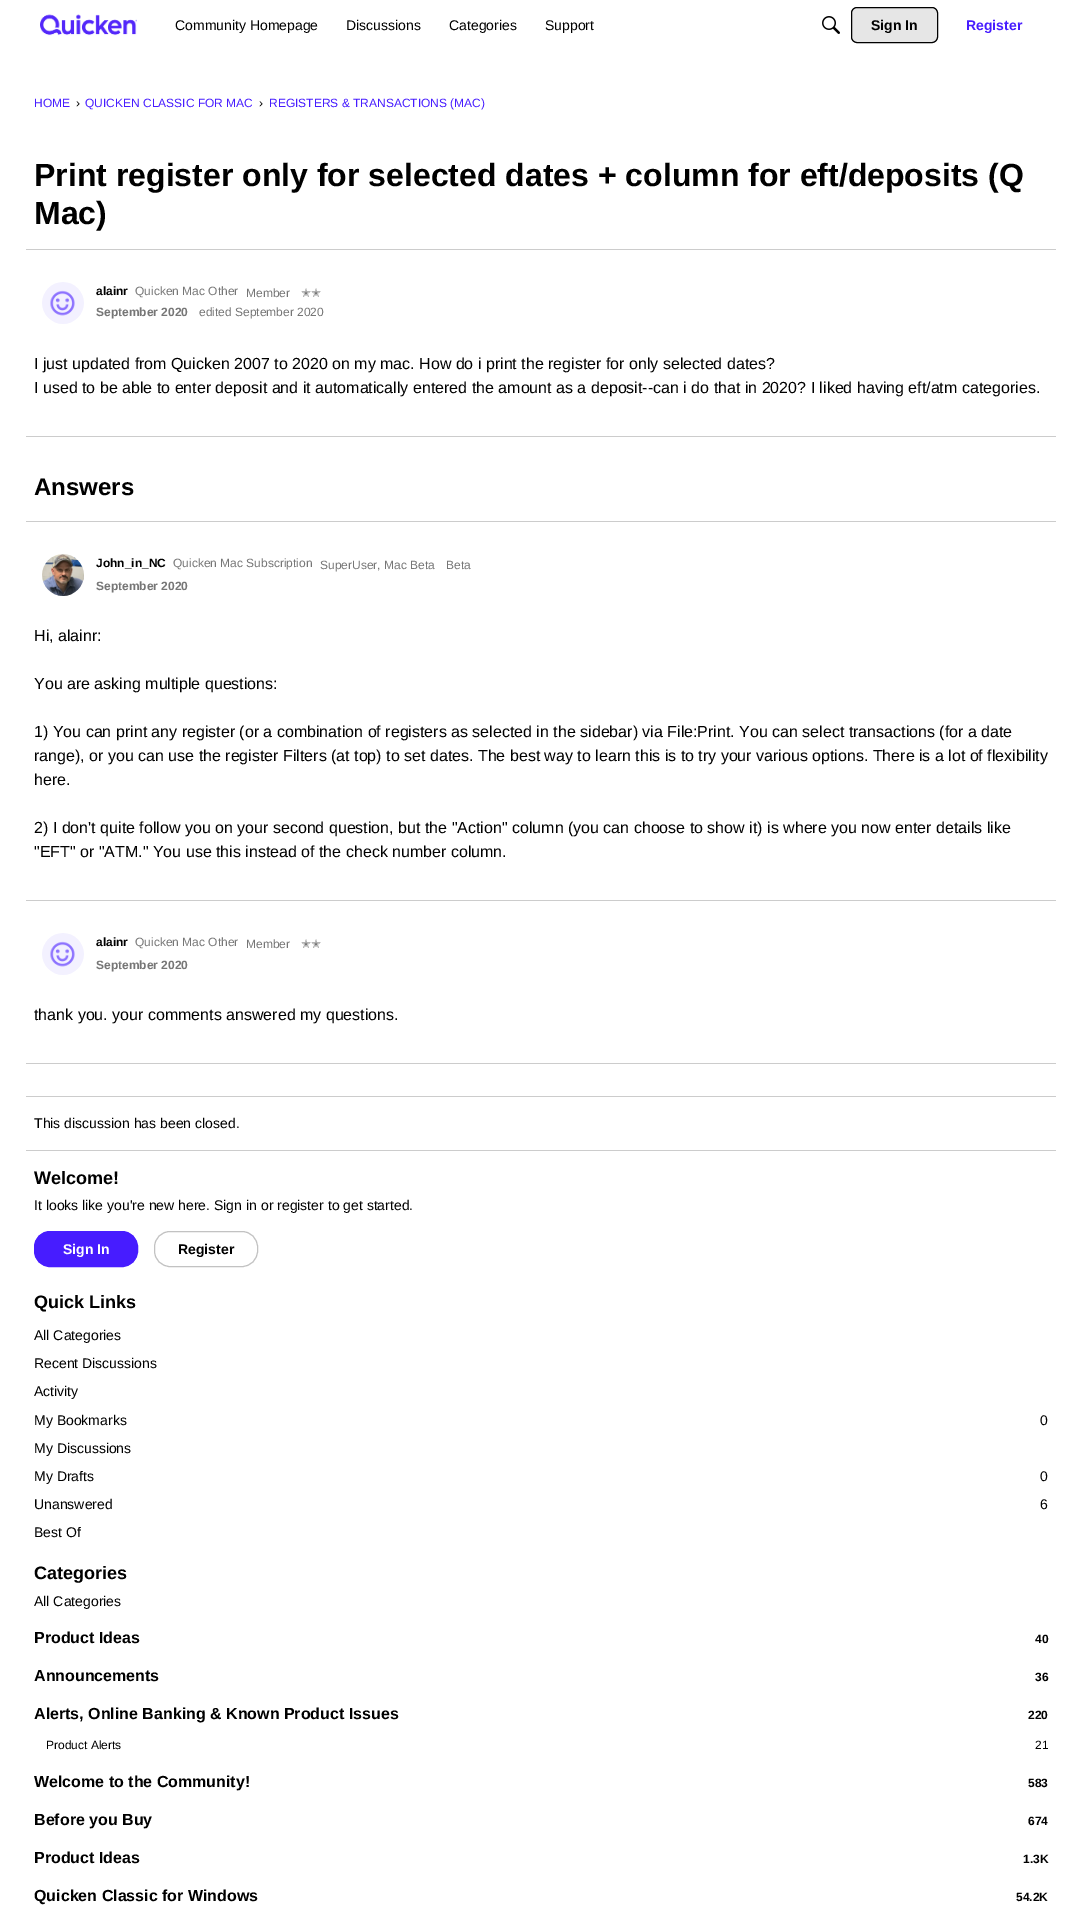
%!PS-Adobe-3.0
%%BoundingBox: 0 0 1082 1923
%%LanguageLevel: 3
%%Pages: 1
%%EndComments
%%BeginProlog
/setink { 3 { 255 div 3 1 roll } repeat setrgbcolor } def
/usefont { [ exch dup neg 0 0 3 -1 roll 0 0 ] selectfont } def
/drawtext { setink usefont moveto show } def
/fillbox { setink rectfill } def
/rrect { 5 dict begin { /r /h /w /y /x } { exch def } forall
  x r add y moveto x w add y 2 copy h add r arct x w add y h add x 1 index r arct
  x y h add x y r arct x y 2 copy exch w add exch r arct closepath end } def
/drawimage { 5 dict begin { /h /w /y /x /name } { exch def } forall
  gsave x y translate w h scale
  w h 8 [w 0 0 h 0 0] name (r) file false 3 colorimage grestore end } def
%%EndProlog
%%BeginSetup
<< /PageSize [1082 1923] >> setpagedevice
%%EndSetup
%%Page: 1 1
0 1923 translate 1 -1 scale
4 setmiterlimit
0 0 1082 1923 255 255 255 fillbox
(assets/img1.rgb) 40 14 97 22 drawimage
(Community Homepage) 175 30 /LiberationSans-Regular 14 0 0 0 drawtext
(Discussions) 346 30 /LiberationSans-Regular 14 0 0 0 drawtext
(Categories) 449 30 /LiberationSans-Regular 14 0 0 0 drawtext
(Support) 545 30 /LiberationSans-Regular 14 0 0 0 drawtext
(assets/img2.rgb) 822 16 18 18 drawimage
230 230 230 setink
851.5 7.5 86 35 5.5 rrect gsave fill grestore
0 0 0 setink
stroke
(Sign In) 871 30 /LiberationSans-Bold 14 0 0 0 drawtext
(Register) 966 30 /LiberationSans-Bold 14 71 28 255 drawtext
(HOME) 34 107 /LiberationSans-Regular 12 71 28 255 drawtext
(›) 76 107 /LiberationSans-Regular 12 0 0 0 drawtext
(QUICKEN CLASSIC FOR MAC) 85 107 /LiberationSans-Regular 12 71 28 255 drawtext
(›) 259 107 /LiberationSans-Regular 12 0 0 0 drawtext
(REGISTERS & TRANSACTIONS \(MAC\)) 269 107 /LiberationSans-Regular 12 71 28 255 drawtext
(Print register only for selected dates + column for eft/deposits \(Q) 34 186 /LiberationSans-Bold 32 0 0 0 drawtext
(Mac\)) 34 224 /LiberationSans-Bold 32 0 0 0 drawtext
26 249 1030 1 204 204 204 fillbox
(assets/img3.rgb) 42 282 42 42 drawimage
(alainr) 96 295 /LiberationSans-Bold 12 0 0 0 drawtext
(Quicken Mac Other) 135 295 /LiberationSans-Regular 12 118 118 118 drawtext
(Member) 246 297 /LiberationSans-Regular 12 118 118 118 drawtext
(✭✭) 301 297 /DejaVuSans-Regular 12 118 118 118 drawtext
(September 2020) 96 316 /LiberationSans-Bold 12 118 118 118 drawtext
(edited September 2020) 199 316 /LiberationSans-Regular 12 118 118 118 drawtext
(I just updated from Quicken 2007 to 2020 on my mac. How do i print the register for only selected dates?) 34 369 /LiberationSans-Regular 16 0 0 0 drawtext
(I used to be able to enter deposit and it automatically entered the amount as a deposit--can i do that in 2020? I liked having eft/atm categories.) 34 393 /LiberationSans-Regular 16 0 0 0 drawtext
26 436 1030 1 204 204 204 fillbox
(Answers) 34 495 /LiberationSans-Bold 24 0 0 0 drawtext
26 521 1030 1 204 204 204 fillbox
(assets/img4.rgb) 42 554 42 42 drawimage
(John_in_NC) 96 567 /LiberationSans-Bold 12 0 0 0 drawtext
(Quicken Mac Subscription) 173 567 /LiberationSans-Regular 12 118 118 118 drawtext
(SuperUser, Mac Beta) 320 569 /LiberationSans-Regular 12 118 118 118 drawtext
(Beta) 446 569 /LiberationSans-Regular 12 118 118 118 drawtext
(September 2020) 96 590 /LiberationSans-Bold 12 118 118 118 drawtext
(Hi, alainr:) 34 641 /LiberationSans-Regular 16 0 0 0 drawtext
(You are asking multiple questions:) 34 689 /LiberationSans-Regular 16 0 0 0 drawtext
(1\) You can print any register \(or a combination of registers as selected in the sidebar\) via File:Print. You can select transactions \(for a date) 34 737 /LiberationSans-Regular 16 0 0 0 drawtext
(range\), or you can use the register Filters \(at top\) to set dates. The best way to learn this is to try your various options. There is a lot of flexibility) 34 761 /LiberationSans-Regular 16 0 0 0 drawtext
(here.) 34 785 /LiberationSans-Regular 16 0 0 0 drawtext
(2\) I don't quite follow you on your second question, but the "Action" column \(you can choose to show it\) is where you now enter details like) 34 833 /LiberationSans-Regular 16 0 0 0 drawtext
("EFT" or "ATM." You use this instead of the check number column.) 34 857 /LiberationSans-Regular 16 0 0 0 drawtext
26 900 1030 1 204 204 204 fillbox
(assets/img5.rgb) 42 933 42 42 drawimage
(alainr) 96 946 /LiberationSans-Bold 12 0 0 0 drawtext
(Quicken Mac Other) 135 946 /LiberationSans-Regular 12 118 118 118 drawtext
(Member) 246 948 /LiberationSans-Regular 12 118 118 118 drawtext
(✭✭) 301 948 /DejaVuSans-Regular 12 118 118 118 drawtext
(September 2020) 96 969 /LiberationSans-Bold 12 118 118 118 drawtext
(thank you. your comments answered my questions.) 34 1020 /LiberationSans-Regular 16 0 0 0 drawtext
26 1063 1030 1 204 204 204 fillbox
26 1096 1030 1 204 204 204 fillbox
(This discussion has been closed.) 34 1128 /LiberationSans-Regular 14 0 0 0 drawtext
26 1150 1030 1 204 204 204 fillbox
(Welcome!) 34 1184 /LiberationSans-Bold 18 0 0 0 drawtext
(It looks like you're new here. Sign in or register to get started.) 34 1210 /LiberationSans-Regular 14 0 0 0 drawtext
71 28 255 setink
34.5 1231.5 103 35 15.5 rrect gsave fill grestore
stroke
(Sign In) 63 1254 /LiberationSans-Bold 14 255 255 255 drawtext
194 194 194 setink
154.5 1231.5 103 35 15.5 rrect stroke
(Register) 178 1254 /LiberationSans-Bold 14 0 0 0 drawtext
(Quick Links) 34 1308 /LiberationSans-Bold 18 0 0 0 drawtext
(All Categories) 34 1340 /LiberationSans-Regular 14 0 0 0 drawtext
(Recent Discussions) 34 1368 /LiberationSans-Regular 14 0 0 0 drawtext
(Activity) 34 1396 /LiberationSans-Regular 14 0 0 0 drawtext
(My Bookmarks) 34 1425 /LiberationSans-Regular 14 0 0 0 drawtext
(0) 1040 1425 /LiberationSans-Regular 14 0 0 0 drawtext
(My Discussions) 34 1453 /LiberationSans-Regular 14 0 0 0 drawtext
(My Drafts) 34 1481 /LiberationSans-Regular 14 0 0 0 drawtext
(0) 1040 1481 /LiberationSans-Regular 14 0 0 0 drawtext
(Unanswered) 34 1509 /LiberationSans-Regular 14 0 0 0 drawtext
(6) 1040 1509 /LiberationSans-Regular 14 0 0 0 drawtext
(Best Of) 34 1537 /LiberationSans-Regular 14 0 0 0 drawtext
(Categories) 34 1579 /LiberationSans-Bold 18 0 0 0 drawtext
(All Categories) 34 1606 /LiberationSans-Regular 14 0 0 0 drawtext
(Product Ideas) 34 1643 /LiberationSans-Bold 16 0 0 0 drawtext
(40) 1035 1643 /LiberationSans-Bold 12 0 0 0 drawtext
(Announcements) 34 1681 /LiberationSans-Bold 16 0 0 0 drawtext
(36) 1035 1681 /LiberationSans-Bold 12 0 0 0 drawtext
(Alerts, Online Banking & Known Product Issues) 34 1719 /LiberationSans-Bold 16 0 0 0 drawtext
(220) 1028 1719 /LiberationSans-Bold 12 0 0 0 drawtext
(Product Alerts) 46 1749 /LiberationSans-Regular 12 0 0 0 drawtext
(21) 1035 1749 /LiberationSans-Regular 12 0 0 0 drawtext
(Welcome to the Community!) 34 1787 /LiberationSans-Bold 16 0 0 0 drawtext
(583) 1028 1787 /LiberationSans-Bold 12 0 0 0 drawtext
(Before you Buy) 34 1825 /LiberationSans-Bold 16 0 0 0 drawtext
(674) 1028 1825 /LiberationSans-Bold 12 0 0 0 drawtext
(Product Ideas) 34 1863 /LiberationSans-Bold 16 0 0 0 drawtext
(1.3K) 1023 1863 /LiberationSans-Bold 12 0 0 0 drawtext
(Quicken Classic for Windows) 34 1901 /LiberationSans-Bold 16 0 0 0 drawtext
(54.2K) 1016 1901 /LiberationSans-Bold 12 0 0 0 drawtext
showpage
%%EOF
